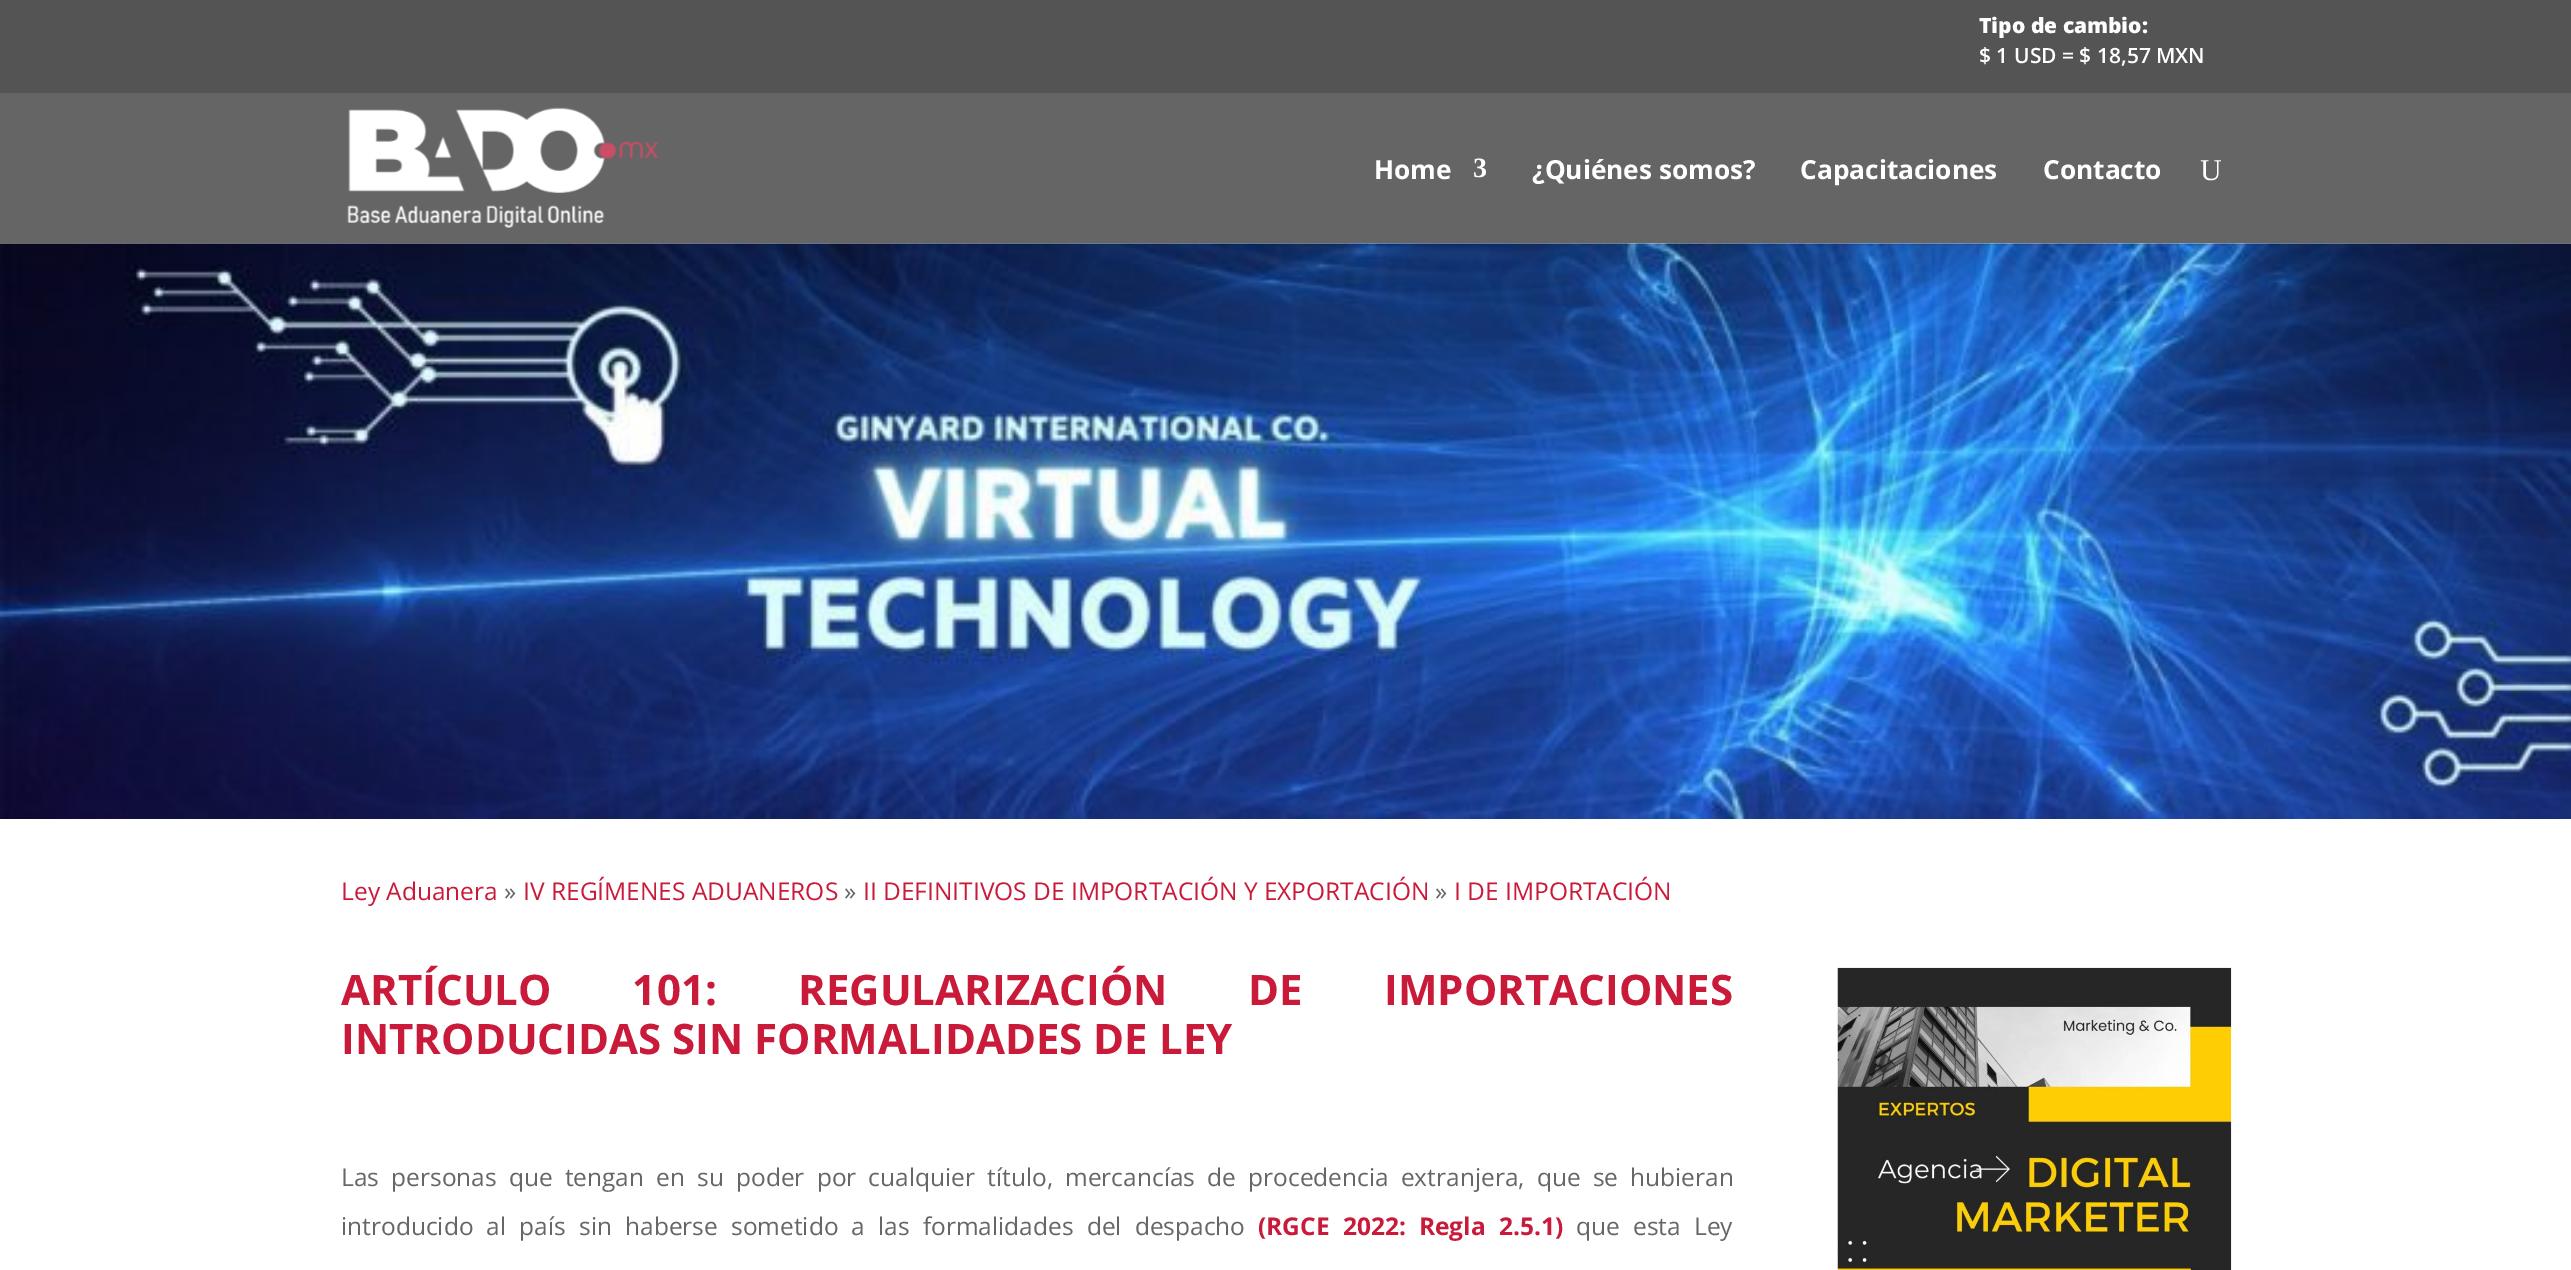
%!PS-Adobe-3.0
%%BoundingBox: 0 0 2571 1270
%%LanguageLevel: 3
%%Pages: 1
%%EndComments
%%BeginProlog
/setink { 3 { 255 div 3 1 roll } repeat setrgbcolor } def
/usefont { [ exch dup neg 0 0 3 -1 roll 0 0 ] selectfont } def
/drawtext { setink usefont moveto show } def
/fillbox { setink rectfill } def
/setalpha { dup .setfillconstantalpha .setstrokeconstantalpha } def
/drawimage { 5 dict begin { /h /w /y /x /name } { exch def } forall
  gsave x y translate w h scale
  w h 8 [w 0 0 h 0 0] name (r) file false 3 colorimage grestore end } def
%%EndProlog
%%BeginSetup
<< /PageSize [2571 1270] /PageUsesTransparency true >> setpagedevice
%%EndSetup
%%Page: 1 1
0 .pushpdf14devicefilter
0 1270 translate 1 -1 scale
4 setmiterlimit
0 0 2571 1270 255 255 255 fillbox
0 0 2571 93 84 84 84 fillbox
(Tipo de cambio:) 1979 33 /OpenSans-ExtraBold 21 255 255 255 drawtext
($ 1 USD = $ 18,57 MXN) 1979 63 /OpenSans-SemiBold 21 255 255 255 drawtext
(assets/img2.rgb) 0 243 2571 576 drawimage
0.1 setalpha
0 0 0 setink
0 243 moveto 0 245 lineto 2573 245 lineto 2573 95 lineto 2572 95 lineto 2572 243 lineto closepath fill
1 setalpha
0 93 2571 150 101 101 101 fillbox
(assets/img1.rgb) 347 107 312 121 drawimage
(Home) 1374 179 /OpenSans-Bold 26.25 255 255 255 drawtext
(3) 1473 177 /LiberationSerif-Bold 28 255 255 255 drawtext
(¿Quiénes somos?) 1532 179 /OpenSans-Bold 26.25 255 255 255 drawtext
(Capacitaciones) 1800 179 /OpenSans-Bold 26.25 255 255 255 drawtext
(Contacto) 2043 179 /OpenSans-Bold 26.25 255 255 255 drawtext
(U) 2200 180 /LiberationSerif-Regular 30 255 255 255 drawtext
(Ley Aduanera) 341 900 /OpenSans-Regular 24.5 201 26 58 drawtext
(») 504 900 /OpenSans-Regular 24.5 102 102 102 drawtext
(IV REGÍMENES ADUANEROS) 523 900 /OpenSans-Regular 24.5 201 26 58 drawtext
(») 844 900 /OpenSans-Regular 24.5 102 102 102 drawtext
(II DEFINITIVOS DE IMPORTACIÓN Y EXPORTACIÓN) 863 900 /OpenSans-Regular 24.5 201 26 58 drawtext
(») 1435 900 /OpenSans-Regular 24.5 102 102 102 drawtext
(I DE IMPORTACIÓN) 1454 900 /OpenSans-Regular 24.5 201 26 58 drawtext
/OpenSans-Bold 42 usefont
341 1005 moveto 70 0 32 (ARTÍCULO 101:) widthshow
798 1005 moveto 70 0 32 (REGULARIZACIÓN DE IMPORTACIONES) widthshow
(INTRODUCIDAS SIN FORMALIDADES DE LEY) 341 1054 /OpenSans-Bold 42 201 26 58 drawtext
/OpenSans-Regular 24.5 usefont
102 102 102 setink
341 1186 moveto 5.75 0 32 (Las personas que tengan en su poder por cualquier título, mercancías de procedencia extranjera, que se hubieran) widthshow
341 1235 moveto 6.75 0 32 (introducido al país sin haberse sometido a las formalidades del despacho) widthshow
/OpenSans-Bold 24.5 usefont
201 26 58 setink
1258 1235 moveto 6.75 0 32 (\(RGCE 2022: Regla 2.5.1\)) widthshow
/OpenSans-Regular 24.5 usefont
102 102 102 setink
1576 1235 moveto 6.75 0 32 (que esta Ley) widthshow
(assets/img3.rgb) 1837 967 395 303 drawimage
.poppdf14devicefilter showpage
%%EOF
